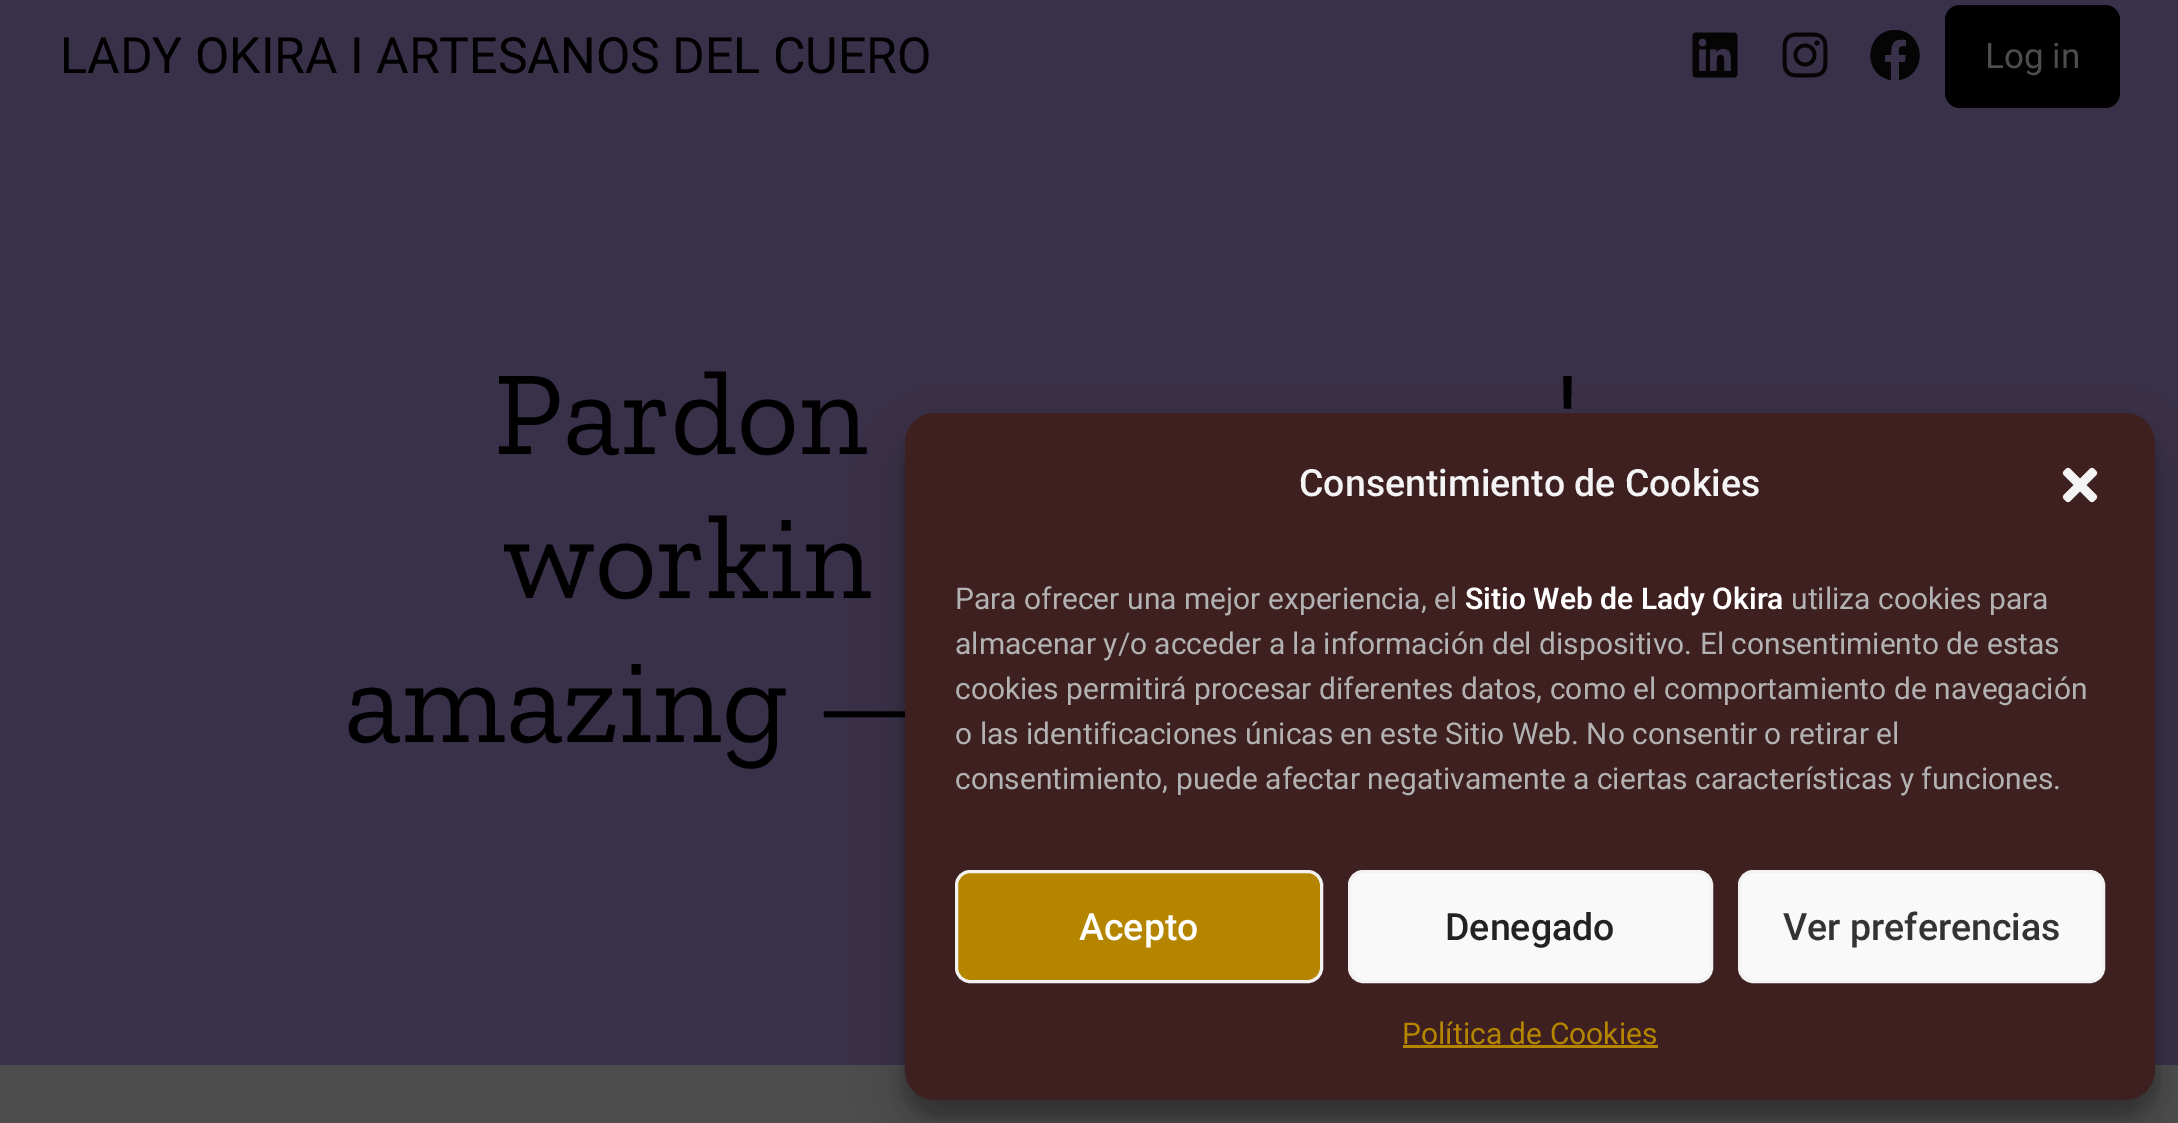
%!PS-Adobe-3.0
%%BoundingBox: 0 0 2178 1123
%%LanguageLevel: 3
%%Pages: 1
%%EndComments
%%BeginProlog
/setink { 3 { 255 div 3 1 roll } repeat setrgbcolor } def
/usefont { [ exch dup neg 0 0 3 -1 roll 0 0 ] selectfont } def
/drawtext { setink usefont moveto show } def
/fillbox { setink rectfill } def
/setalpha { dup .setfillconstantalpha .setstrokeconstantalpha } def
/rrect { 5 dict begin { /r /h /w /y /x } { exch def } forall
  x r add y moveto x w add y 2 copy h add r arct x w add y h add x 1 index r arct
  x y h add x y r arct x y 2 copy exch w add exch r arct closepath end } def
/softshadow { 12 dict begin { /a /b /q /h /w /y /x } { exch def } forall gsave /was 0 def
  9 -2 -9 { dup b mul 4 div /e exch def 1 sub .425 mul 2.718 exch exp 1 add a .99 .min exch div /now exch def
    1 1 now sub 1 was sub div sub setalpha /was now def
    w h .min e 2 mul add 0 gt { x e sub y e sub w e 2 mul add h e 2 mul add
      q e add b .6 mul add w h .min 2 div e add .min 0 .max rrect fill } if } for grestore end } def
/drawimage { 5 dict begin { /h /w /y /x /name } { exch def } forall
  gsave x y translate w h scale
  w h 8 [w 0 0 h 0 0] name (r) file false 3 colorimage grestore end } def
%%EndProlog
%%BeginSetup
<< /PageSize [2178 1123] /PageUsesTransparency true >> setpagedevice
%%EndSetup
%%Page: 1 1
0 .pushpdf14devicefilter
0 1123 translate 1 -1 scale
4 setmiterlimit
0 0 2178 1123 77 77 77 fillbox
0 0 2178 1065 57 48 73 fillbox
(LADY OKIRA I ARTESANOS DEL CUERO) 60 73 /Roboto-Regular 50 0 0 0 drawtext
(assets/img1.rgb) 1692 32 46 46 drawimage
(assets/img2.rgb) 1782 32 46 46 drawimage
5 5 5 setink
1895 30 moveto 1865 30 1861 75 1891 80 curveto 1891 62 lineto 1885 62 lineto 1885 55 lineto 1891 55 lineto 1891 43 1893 38 1906 40 curveto 1906 46 lineto 1898 46 1899 48 1899 55 curveto 1906 55 lineto 1905 62 lineto 1899 62 lineto 1899 80 lineto 1929 75 1925 30 1895 30 curveto closepath fill
0 0 0 setink
1945 5 175 103 15 rrect fill
(Log in) 1985 68 /Roboto-Regular 35 77 77 77 drawtext
(Pardon) 494 454 /ZillaSlab-Regular 120 0 0 0 drawtext
(') 1556 454 /ZillaSlab-Regular 120 0 0 0 drawtext
(workin) 503 598 /ZillaSlab-Regular 120 0 0 0 drawtext
(amazing —) 344 742 /ZillaSlab-Regular 120 0 0 0 drawtext
905 428 1250 687 30 7.5 0.23 softshadow
905 438 1250 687 30 25 0.19 softshadow
63 32 33 setink
905 413 1250 687 30 rrect fill
(Consentimiento de Cookies) 1299 496 /Roboto-Medium 37.5 244 244 244 drawtext
(assets/img3.rgb) 2062 467 36 36 drawimage
(Para ofrecer una mejor experiencia, el) 955 609 /Roboto-Regular 30 178 178 178 drawtext
(Sitio Web de Lady Okira) 1465 609 /Roboto-SemiBold 30 255 255 255 drawtext
(utiliza cookies para) 1791 609 /Roboto-Regular 30 178 178 178 drawtext
(almacenar y/o acceder a la información del dispositivo. El consentimiento de estas) 955 654 /Roboto-Regular 30 178 178 178 drawtext
(cookies permitirá procesar diferentes datos, como el comportamiento de navegación) 955 699 /Roboto-Regular 30 178 178 178 drawtext
(o las identificaciones únicas en este Sitio Web. No consentir o retirar el) 955 744 /Roboto-Regular 30 178 178 178 drawtext
(consentimiento, puede afectar negativamente a ciertas características y funciones.) 955 789 /Roboto-Regular 30 178 178 178 drawtext
181 133 0 setink
956.5 871.5 365 110 13.5 rrect gsave fill grestore
242 242 242 setink
3 setlinewidth
stroke
(Acepto) 1079 940 /Roboto-Medium 37.5 255 255 255 drawtext
249 249 249 setink
1349.5 871.5 362 110 13.5 rrect gsave fill grestore
242 242 242 setink
stroke
(Denegado) 1445 940 /Roboto-Medium 37.5 34 34 34 drawtext
249 249 249 setink
1739.5 871.5 364 110 13.5 rrect gsave fill grestore
242 242 242 setink
stroke
(Ver preferencias) 1783 940 /Roboto-Medium 37.5 51 51 51 drawtext
(Política de Cookies) 1402 1044 /Roboto-Regular 30 181 133 0 drawtext
1403 1045 255 3 181 133 0 fillbox
.poppdf14devicefilter showpage
%%EOF
